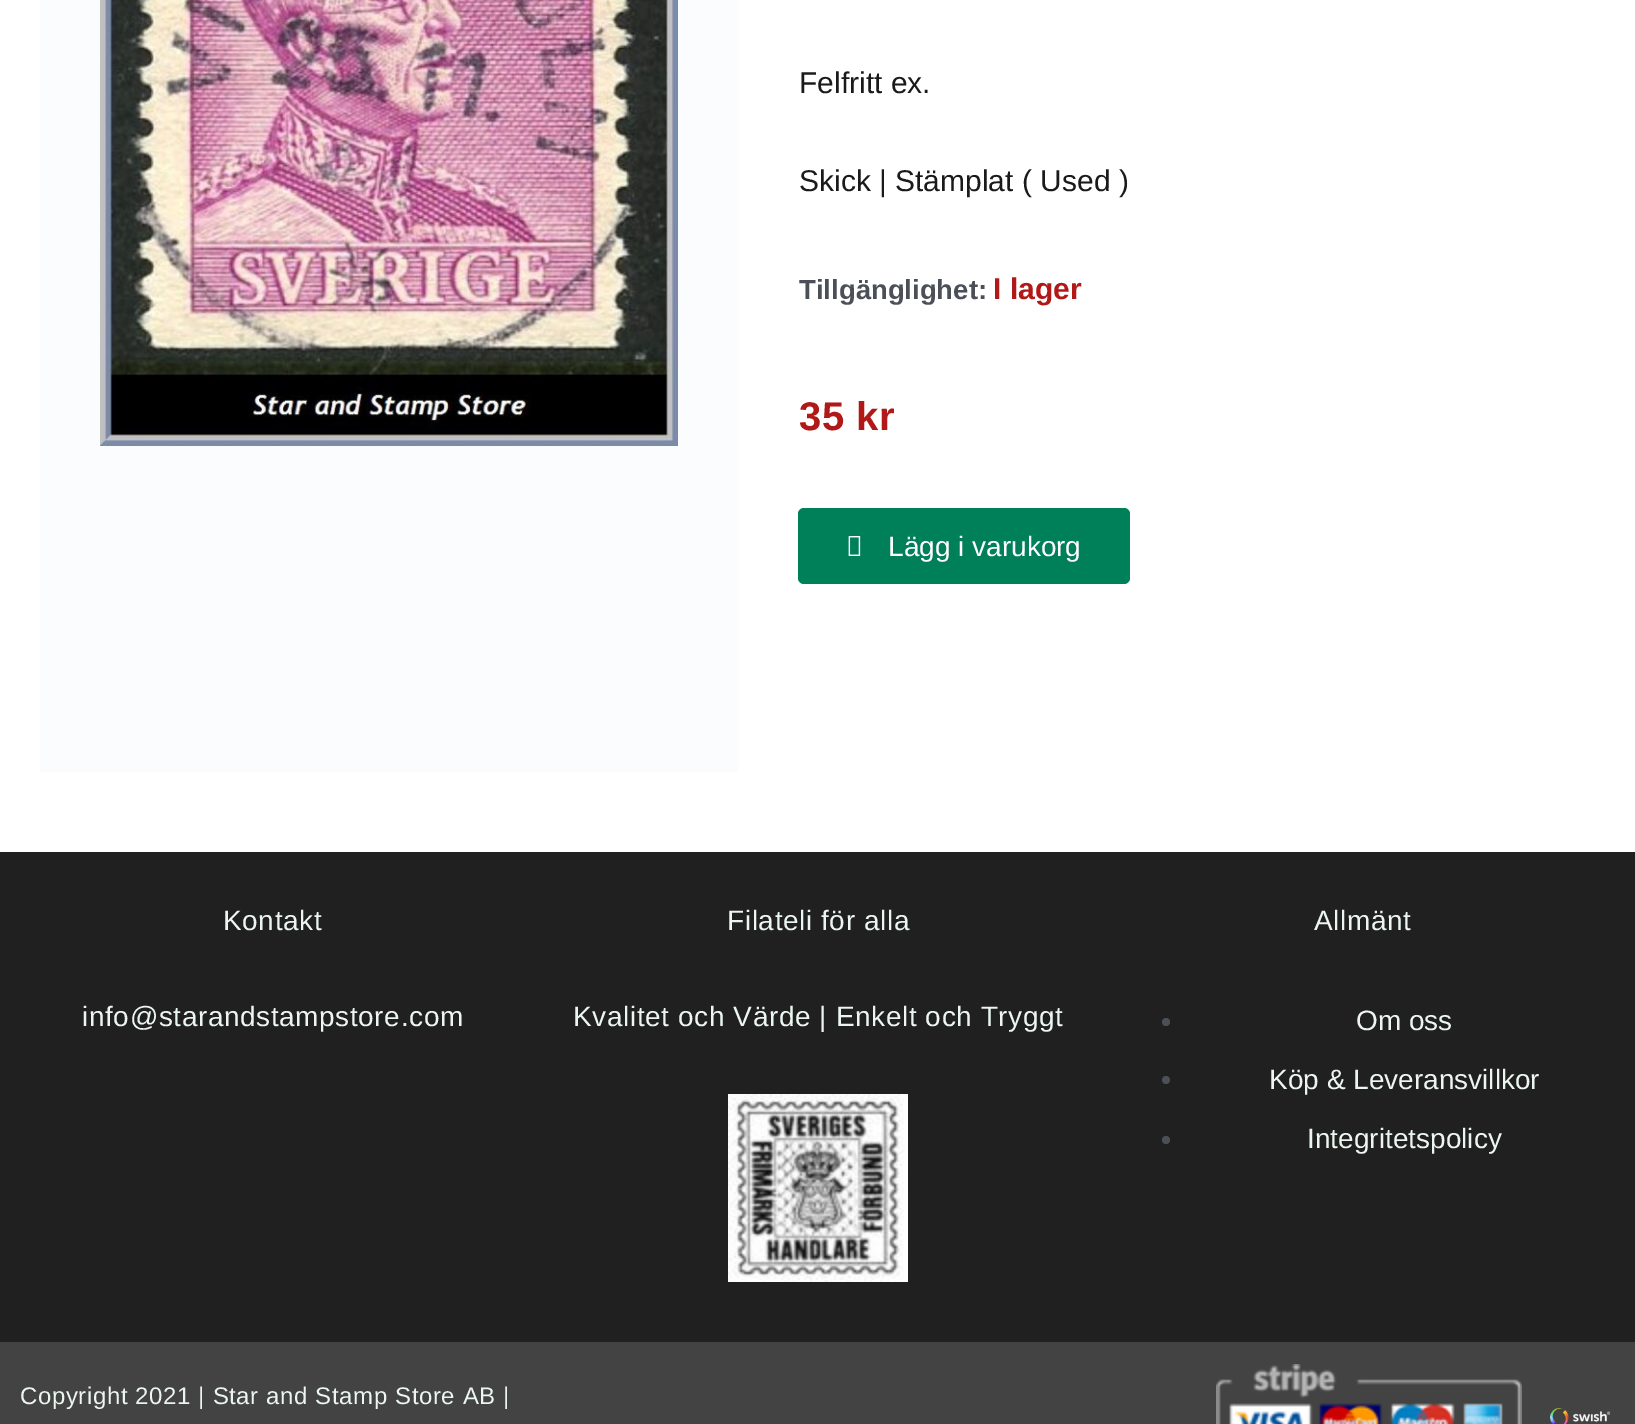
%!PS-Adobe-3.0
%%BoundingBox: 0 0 1635 1424
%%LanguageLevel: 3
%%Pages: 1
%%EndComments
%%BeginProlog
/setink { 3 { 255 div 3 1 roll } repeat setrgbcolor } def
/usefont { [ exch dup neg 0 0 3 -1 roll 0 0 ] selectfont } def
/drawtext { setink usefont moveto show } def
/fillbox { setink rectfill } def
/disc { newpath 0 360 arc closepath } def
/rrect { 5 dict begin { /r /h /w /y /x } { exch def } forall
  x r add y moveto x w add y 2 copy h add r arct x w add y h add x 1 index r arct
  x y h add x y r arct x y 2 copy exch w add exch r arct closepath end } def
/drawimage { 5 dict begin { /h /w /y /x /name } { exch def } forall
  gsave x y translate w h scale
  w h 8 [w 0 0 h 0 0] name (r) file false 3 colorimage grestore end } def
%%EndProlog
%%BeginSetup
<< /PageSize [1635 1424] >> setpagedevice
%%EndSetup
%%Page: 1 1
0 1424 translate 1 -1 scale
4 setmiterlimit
0 0 1635 1424 255 255 255 fillbox
40 0 698 772 251 252 253 fillbox
(assets/img1.rgb) 100 0 578 446 drawimage
(Felfritt ex.) 799 93 /LiberationSans-Regular 30 26 26 26 drawtext
(Skick | Stämplat \( Used \)) 799 191 /LiberationSans-Regular 30 26 26 26 drawtext
(Tillgänglighet:) 799 299 /LiberationSans-Bold 27.5 75 79 88 drawtext
(I lager) 993 299 /LiberationSans-Bold 30 177 25 25 drawtext
/LiberationSans-Bold 40 usefont
799 430 moveto 0.6 0 (35 kr) ashow
0 128 89 setink
798 508 332 76 6 rrect fill
(assets/img2.rgb) 848 536 13 20 drawimage
(Lägg i varukorg) 888 556 /LiberationSans-Regular 28 255 255 255 drawtext
0 852 1635 490 32 32 32 fillbox
236 246 241 setink
223 930 moveto 0.6 0 (Kontakt) ashow
82 1026 moveto 0.6 0 (info@starandstampstore.com) ashow
727 930 moveto 0.6 0 (Filateli för alla) ashow
573 1026 moveto 0.6 0 (Kvalitet och Värde | Enkelt och Tryggt) ashow
(assets/img3.rgb) 728 1094 180 188 drawimage
1314 930 moveto 0.6 0 (Allmänt) ashow
75 79 88 setink
1166 1022 4 disc fill
(Om oss) 1356 1030 /LiberationSans-Regular 28 236 246 241 drawtext
75 79 88 setink
1166 1080 4 disc fill
(Köp & Leveransvillkor) 1269 1089 /LiberationSans-Regular 28 236 246 241 drawtext
75 79 88 setink
1166 1140 4 disc fill
(Integritetspolicy) 1307 1148 /LiberationSans-Regular 28 236 246 241 drawtext
0 1342 1635 82 67 67 67 fillbox
/LiberationSans-Regular 24 usefont
236 246 241 setink
20 1404 moveto 0.6 0 (Copyright 2021 | Star and Stamp Store AB |) ashow
(assets/img4.rgb) 1216 1364 306 60 drawimage
(assets/img5.rgb) 1550 1408 60 16 drawimage
showpage
%%EOF
